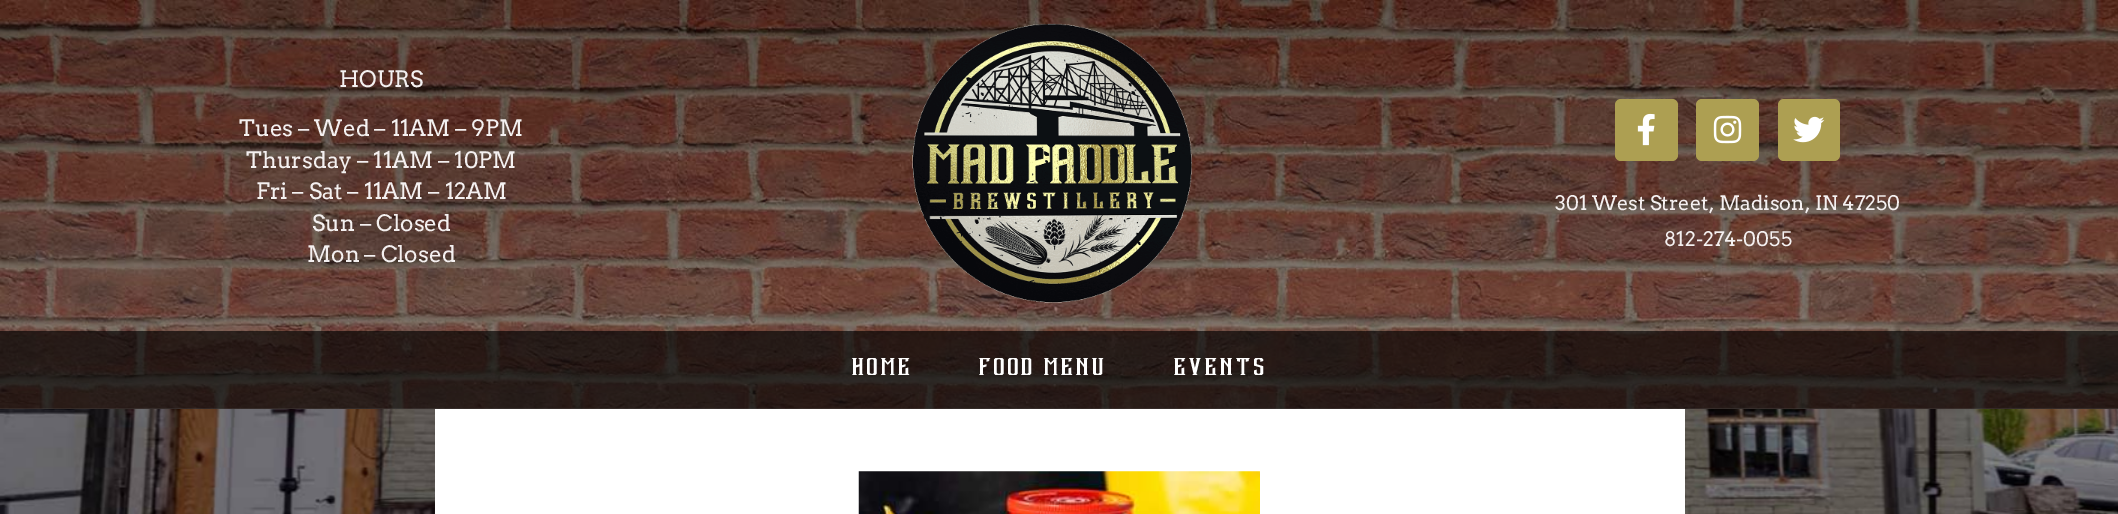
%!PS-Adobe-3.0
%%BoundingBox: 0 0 2118 514
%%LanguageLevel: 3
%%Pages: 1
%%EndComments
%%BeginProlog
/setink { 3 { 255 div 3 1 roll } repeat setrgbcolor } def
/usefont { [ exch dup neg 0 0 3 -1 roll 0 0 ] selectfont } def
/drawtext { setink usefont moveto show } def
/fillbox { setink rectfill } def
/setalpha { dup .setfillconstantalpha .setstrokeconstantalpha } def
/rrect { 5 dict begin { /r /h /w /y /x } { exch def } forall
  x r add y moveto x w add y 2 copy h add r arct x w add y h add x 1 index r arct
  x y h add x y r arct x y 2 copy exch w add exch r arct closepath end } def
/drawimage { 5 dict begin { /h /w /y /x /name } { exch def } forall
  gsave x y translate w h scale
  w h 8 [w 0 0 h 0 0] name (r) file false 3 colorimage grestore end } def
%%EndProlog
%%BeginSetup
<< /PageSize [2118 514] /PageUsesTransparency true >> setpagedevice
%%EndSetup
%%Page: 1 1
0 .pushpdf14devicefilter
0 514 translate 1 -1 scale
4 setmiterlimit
0 0 2118 514 255 255 255 fillbox
(assets/img1.rgb) 0 0 2118 409 drawimage
0.15 setalpha
gsave 0 0 moveto 2118 0 lineto 2118 409 lineto 0 409 lineto closepath clip newpath
<< /ShadingType 2 /ColorSpace /DeviceRGB /Coords [1059 0 1059 409] /Extend [true true] /Function << /FunctionType 2 /Domain [0 1] /C0 [0.047 0.047 0.047] /C1 [1 1 1] /N 1 >> >> shfill grestore
1 setalpha
(HOURS) 339 87 /Arvo-Regular 22.5 244 240 240 drawtext
(Tues – Wed – 11AM – 9PM) 239 136 /Arvo-Regular 22.5 244 240 240 drawtext
(Thursday – 11AM – 10PM) 246 168 /Arvo-Regular 22.5 244 240 240 drawtext
(Fri – Sat – 11AM – 12AM) 256 199 /Arvo-Regular 22.5 244 240 240 drawtext
(Sun – Closed) 312 231 /Arvo-Regular 22.5 244 240 240 drawtext
(Mon – Closed) 307 262 /Arvo-Regular 22.5 244 240 240 drawtext
(assets/img2.rgb) 912 23 280 280 drawimage
173 159 82 setink
1615 99 63 62 6 rrect fill
(assets/img3.rgb) 1637 113 18 33 drawimage
1696 99 63 62 6 rrect fill
(assets/img4.rgb) 1713 115 29 29 drawimage
1778 99 62 62 6 rrect fill
(assets/img5.rgb) 1793 116 32 27 drawimage
(301 West Street, Madison, IN 47250) 1555 210 /Arvo-Regular 20 244 240 240 drawtext
(812-274-0055) 1664 246 /Arvo-Regular 20 244 240 240 drawtext
0.65 setalpha
0 331 2118 78 0 0 0 fillbox
/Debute-Regular 20 usefont
1 setalpha
255 255 255 setink
852 375 moveto 3 0 (HOME) ashow
979 375 moveto 3 0 (FOOD MENU) ashow
1174 375 moveto 3 0 (EVENTS) ashow
(assets/img6.rgb) 0 409 2118 105 drawimage
435 409 1250 105 255 255 255 fillbox
(assets/img7.rgb) 858 471 402 43 drawimage
.poppdf14devicefilter showpage
%%EOF
